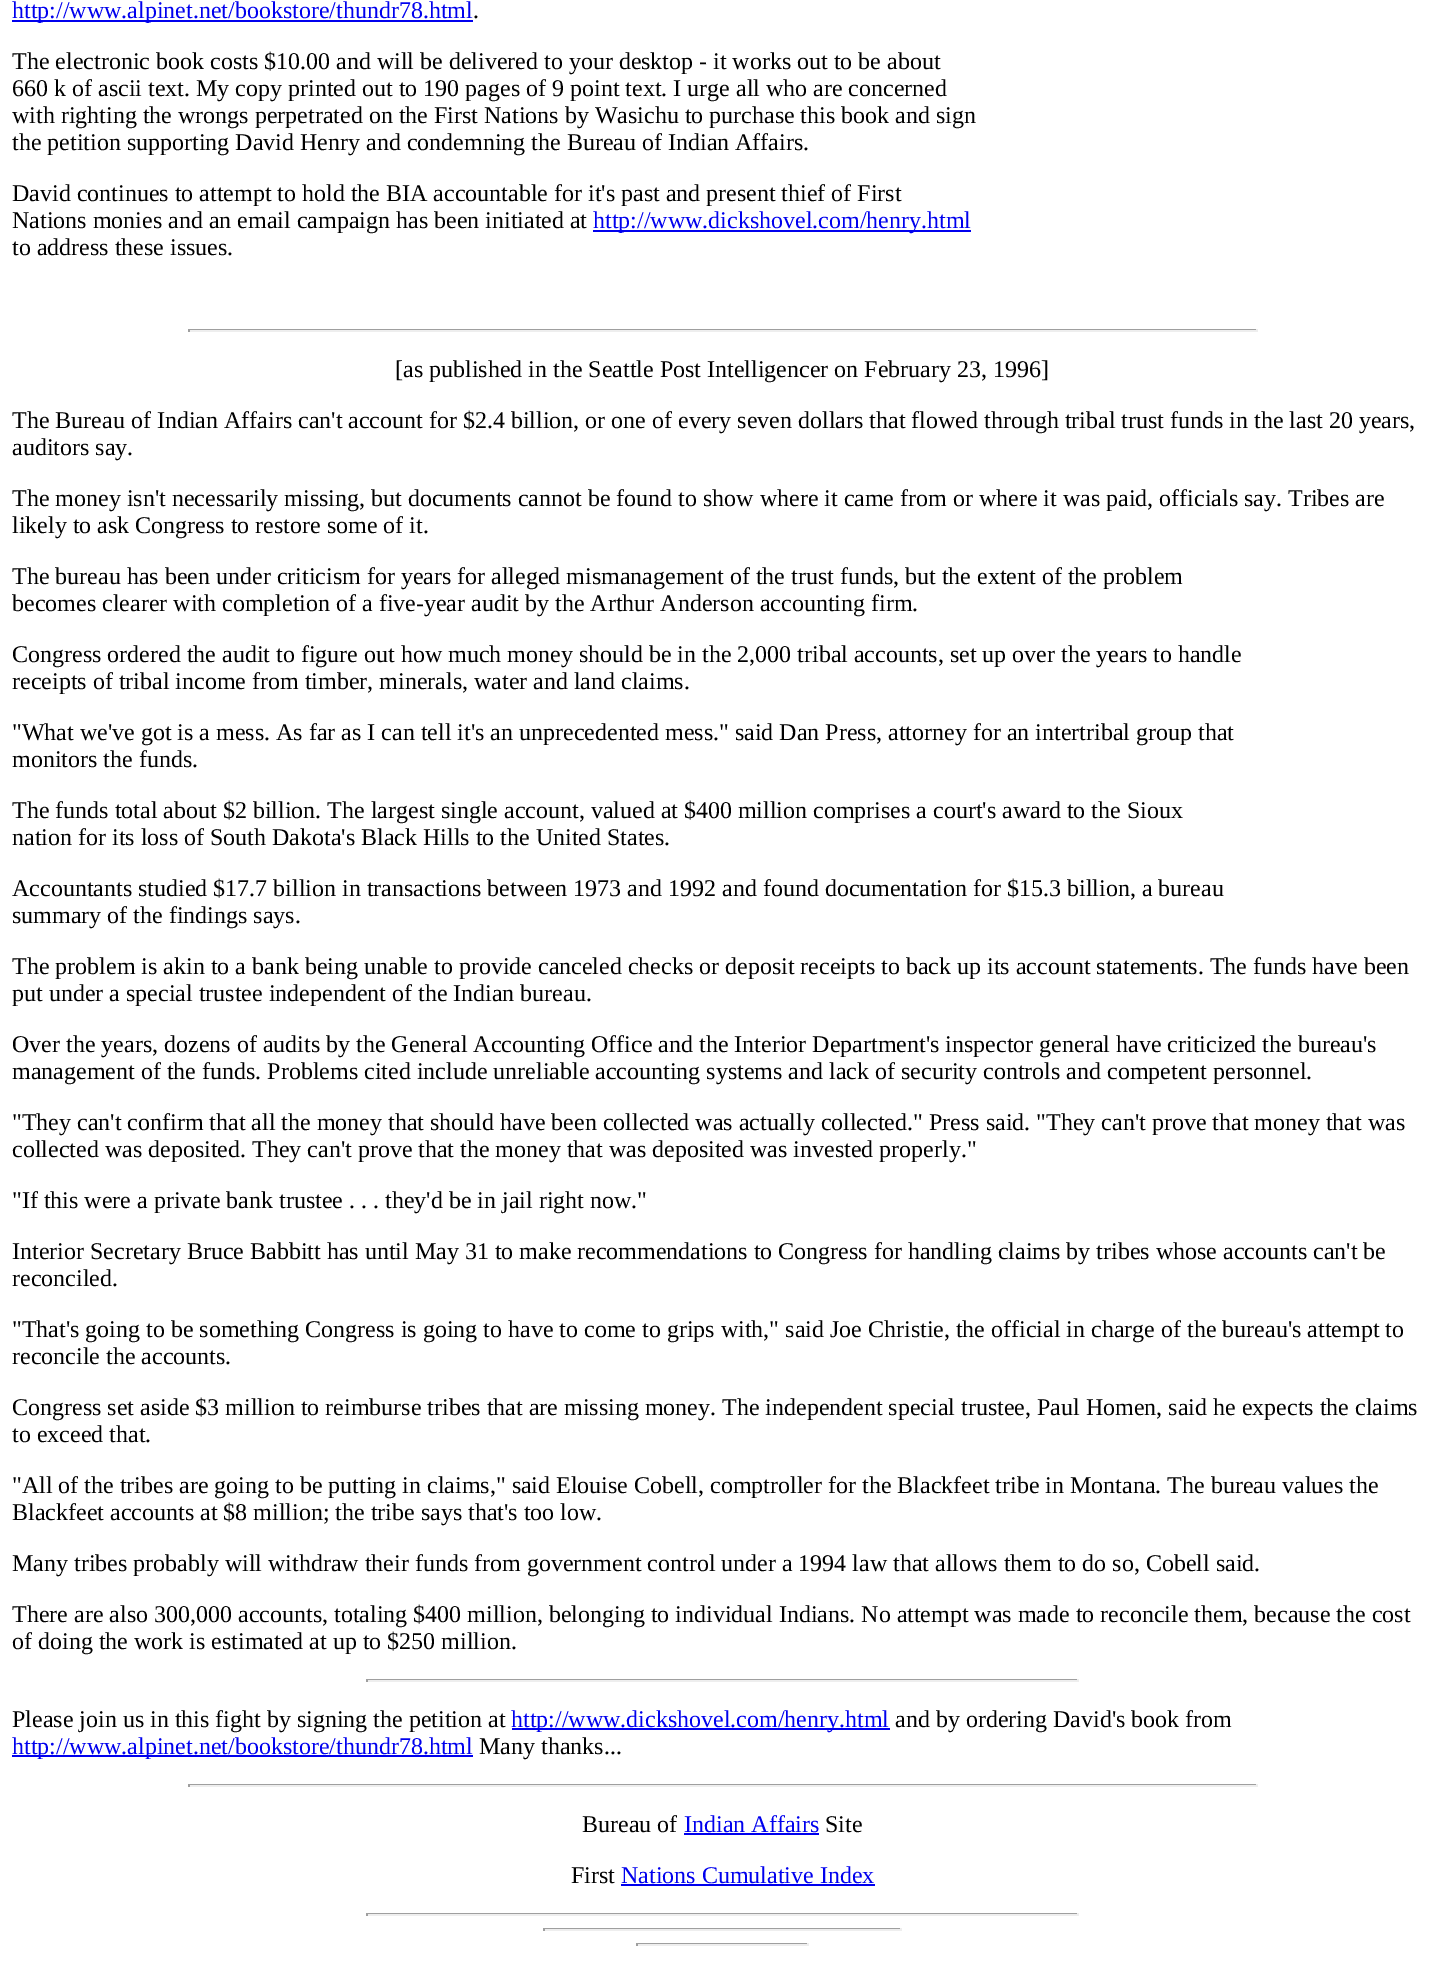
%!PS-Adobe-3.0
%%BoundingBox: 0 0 1444 1982
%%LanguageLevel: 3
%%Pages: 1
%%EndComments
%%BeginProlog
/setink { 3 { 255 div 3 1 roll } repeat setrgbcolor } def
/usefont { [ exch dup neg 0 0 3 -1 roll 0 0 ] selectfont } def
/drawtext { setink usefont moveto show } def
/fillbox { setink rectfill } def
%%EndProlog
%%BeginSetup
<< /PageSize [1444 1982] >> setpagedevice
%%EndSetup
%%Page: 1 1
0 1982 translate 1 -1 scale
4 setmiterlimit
0 0 1444 1982 255 255 255 fillbox
12 20 461 2 0 0 238 fillbox
(http://www.alpinet.net/bookstore/thundr78.html) 12 18 /LiberationSerif-Regular 24 0 0 238 drawtext
(.) 473 18 /LiberationSerif-Regular 24 0 0 0 drawtext
(The electronic book costs $10.00 and will be delivered to your desktop - it works out to be about) 12 69 /LiberationSerif-Regular 24 0 0 0 drawtext
(660 k of ascii text. My copy printed out to 190 pages of 9 point text. I urge all who are concerned) 12 96 /LiberationSerif-Regular 24 0 0 0 drawtext
(with righting the wrongs perpetrated on the First Nations by Wasichu to purchase this book and sign) 12 123 /LiberationSerif-Regular 24 0 0 0 drawtext
(the petition supporting David Henry and condemning the Bureau of Indian Affairs.) 12 150 /LiberationSerif-Regular 24 0 0 0 drawtext
(David continues to attempt to hold the BIA accountable for it's past and present thief of First) 12 201 /LiberationSerif-Regular 24 0 0 0 drawtext
(Nations monies and an email campaign has been initiated at) 12 228 /LiberationSerif-Regular 24 0 0 0 drawtext
593 230 378 2 0 0 238 fillbox
(http://www.dickshovel.com/henry.html) 593 228 /LiberationSerif-Regular 24 0 0 238 drawtext
(to address these issues.) 12 255 /LiberationSerif-Regular 24 0 0 0 drawtext
188 329 1069 1 159 159 159 fillbox
1256 329 2 3 238 238 238 fillbox
188 330 1069 2 238 238 238 fillbox
188 329 2 3 159 159 159 fillbox
([as published in the Seattle Post Intelligencer on February 23, 1996]) 395 377 /LiberationSerif-Regular 24 0 0 0 drawtext
(The Bureau of Indian Affairs can't account for $2.4 billion, or one of every seven dollars that flowed through tribal trust funds in the last 20 years,) 12 428 /LiberationSerif-Regular 24 0 0 0 drawtext
(auditors say.) 12 455 /LiberationSerif-Regular 24 0 0 0 drawtext
(The money isn't necessarily missing, but documents cannot be found to show where it came from or where it was paid, officials say. Tribes are) 12 506 /LiberationSerif-Regular 24 0 0 0 drawtext
(likely to ask Congress to restore some of it.) 12 533 /LiberationSerif-Regular 24 0 0 0 drawtext
(The bureau has been under criticism for years for alleged mismanagement of the trust funds, but the extent of the problem) 12 584 /LiberationSerif-Regular 24 0 0 0 drawtext
(becomes clearer with completion of a five-year audit by the Arthur Anderson accounting firm.) 12 611 /LiberationSerif-Regular 24 0 0 0 drawtext
(Congress ordered the audit to figure out how much money should be in the 2,000 tribal accounts, set up over the years to handle) 12 662 /LiberationSerif-Regular 24 0 0 0 drawtext
(receipts of tribal income from timber, minerals, water and land claims.) 12 689 /LiberationSerif-Regular 24 0 0 0 drawtext
("What we've got is a mess. As far as I can tell it's an unprecedented mess." said Dan Press, attorney for an intertribal group that) 12 740 /LiberationSerif-Regular 24 0 0 0 drawtext
(monitors the funds.) 12 767 /LiberationSerif-Regular 24 0 0 0 drawtext
(The funds total about $2 billion. The largest single account, valued at $400 million comprises a court's award to the Sioux) 12 818 /LiberationSerif-Regular 24 0 0 0 drawtext
(nation for its loss of South Dakota's Black Hills to the United States.) 12 845 /LiberationSerif-Regular 24 0 0 0 drawtext
(Accountants studied $17.7 billion in transactions between 1973 and 1992 and found documentation for $15.3 billion, a bureau) 12 896 /LiberationSerif-Regular 24 0 0 0 drawtext
(summary of the findings says.) 12 923 /LiberationSerif-Regular 24 0 0 0 drawtext
(The problem is akin to a bank being unable to provide canceled checks or deposit receipts to back up its account statements. The funds have been) 12 974 /LiberationSerif-Regular 24 0 0 0 drawtext
(put under a special trustee independent of the Indian bureau.) 12 1001 /LiberationSerif-Regular 24 0 0 0 drawtext
(Over the years, dozens of audits by the General Accounting Office and the Interior Department's inspector general have criticized the bureau's) 12 1052 /LiberationSerif-Regular 24 0 0 0 drawtext
(management of the funds. Problems cited include unreliable accounting systems and lack of security controls and competent personnel.) 12 1079 /LiberationSerif-Regular 24 0 0 0 drawtext
("They can't confirm that all the money that should have been collected was actually collected." Press said. "They can't prove that money that was) 12 1130 /LiberationSerif-Regular 24 0 0 0 drawtext
(collected was deposited. They can't prove that the money that was deposited was invested properly.") 12 1157 /LiberationSerif-Regular 24 0 0 0 drawtext
("If this were a private bank trustee . . . they'd be in jail right now.") 12 1208 /LiberationSerif-Regular 24 0 0 0 drawtext
(Interior Secretary Bruce Babbitt has until May 31 to make recommendations to Congress for handling claims by tribes whose accounts can't be) 12 1259 /LiberationSerif-Regular 24 0 0 0 drawtext
(reconciled.) 12 1286 /LiberationSerif-Regular 24 0 0 0 drawtext
("That's going to be something Congress is going to have to come to grips with," said Joe Christie, the official in charge of the bureau's attempt to) 12 1337 /LiberationSerif-Regular 24 0 0 0 drawtext
(reconcile the accounts.) 12 1364 /LiberationSerif-Regular 24 0 0 0 drawtext
(Congress set aside $3 million to reimburse tribes that are missing money. The independent special trustee, Paul Homen, said he expects the claims) 12 1415 /LiberationSerif-Regular 24 0 0 0 drawtext
(to exceed that.) 12 1442 /LiberationSerif-Regular 24 0 0 0 drawtext
("All of the tribes are going to be putting in claims," said Elouise Cobell, comptroller for the Blackfeet tribe in Montana. The bureau values the) 12 1493 /LiberationSerif-Regular 24 0 0 0 drawtext
(Blackfeet accounts at $8 million; the tribe says that's too low.) 12 1520 /LiberationSerif-Regular 24 0 0 0 drawtext
(Many tribes probably will withdraw their funds from government control under a 1994 law that allows them to do so, Cobell said.) 12 1571 /LiberationSerif-Regular 24 0 0 0 drawtext
(There are also 300,000 accounts, totaling $400 million, belonging to individual Indians. No attempt was made to reconcile them, because the cost) 12 1622 /LiberationSerif-Regular 24 0 0 0 drawtext
(of doing the work is estimated at up to $250 million.) 12 1649 /LiberationSerif-Regular 24 0 0 0 drawtext
366 1679 713 1 159 159 159 fillbox
1077 1679 2 3 238 238 238 fillbox
366 1680 713 2 238 238 238 fillbox
366 1679 2 3 159 159 159 fillbox
(Please join us in this fight by signing the petition at) 12 1727 /LiberationSerif-Regular 24 0 0 0 drawtext
512 1728 378 2 0 0 238 fillbox
(http://www.dickshovel.com/henry.html) 511 1727 /LiberationSerif-Regular 24 0 0 238 drawtext
(and by ordering David's book from) 895 1727 /LiberationSerif-Regular 24 0 0 0 drawtext
12 1755 461 2 0 0 238 fillbox
(http://www.alpinet.net/bookstore/thundr78.html) 12 1754 /LiberationSerif-Regular 24 0 0 238 drawtext
(Many thanks...) 479 1754 /LiberationSerif-Regular 24 0 0 0 drawtext
188 1784 1069 1 159 159 159 fillbox
1256 1784 2 3 238 238 238 fillbox
188 1785 1069 2 238 238 238 fillbox
188 1784 2 3 159 159 159 fillbox
(Bureau of) 582 1832 /LiberationSerif-Regular 24 0 0 0 drawtext
(Indian Affairs) 684 1832 /LiberationSerif-Regular 24 0 0 238 drawtext
684 1833 135 2 0 0 238 fillbox
(Site) 825 1832 /LiberationSerif-Regular 24 0 0 0 drawtext
(First) 571 1883 /LiberationSerif-Regular 24 0 0 0 drawtext
(Nations Cumulative Index) 621 1883 /LiberationSerif-Regular 24 0 0 238 drawtext
621 1884 254 2 0 0 238 fillbox
366 1913 713 1 159 159 159 fillbox
1077 1913 2 3 238 238 238 fillbox
366 1914 713 2 238 238 238 fillbox
366 1913 2 3 159 159 159 fillbox
543 1928 359 1 159 159 159 fillbox
900 1928 2 3 238 238 238 fillbox
543 1929 359 2 238 238 238 fillbox
543 1928 2 3 159 159 159 fillbox
636 1943 173 1 159 159 159 fillbox
807 1943 2 3 238 238 238 fillbox
636 1944 173 2 238 238 238 fillbox
636 1943 2 3 159 159 159 fillbox
showpage
%%EOF
